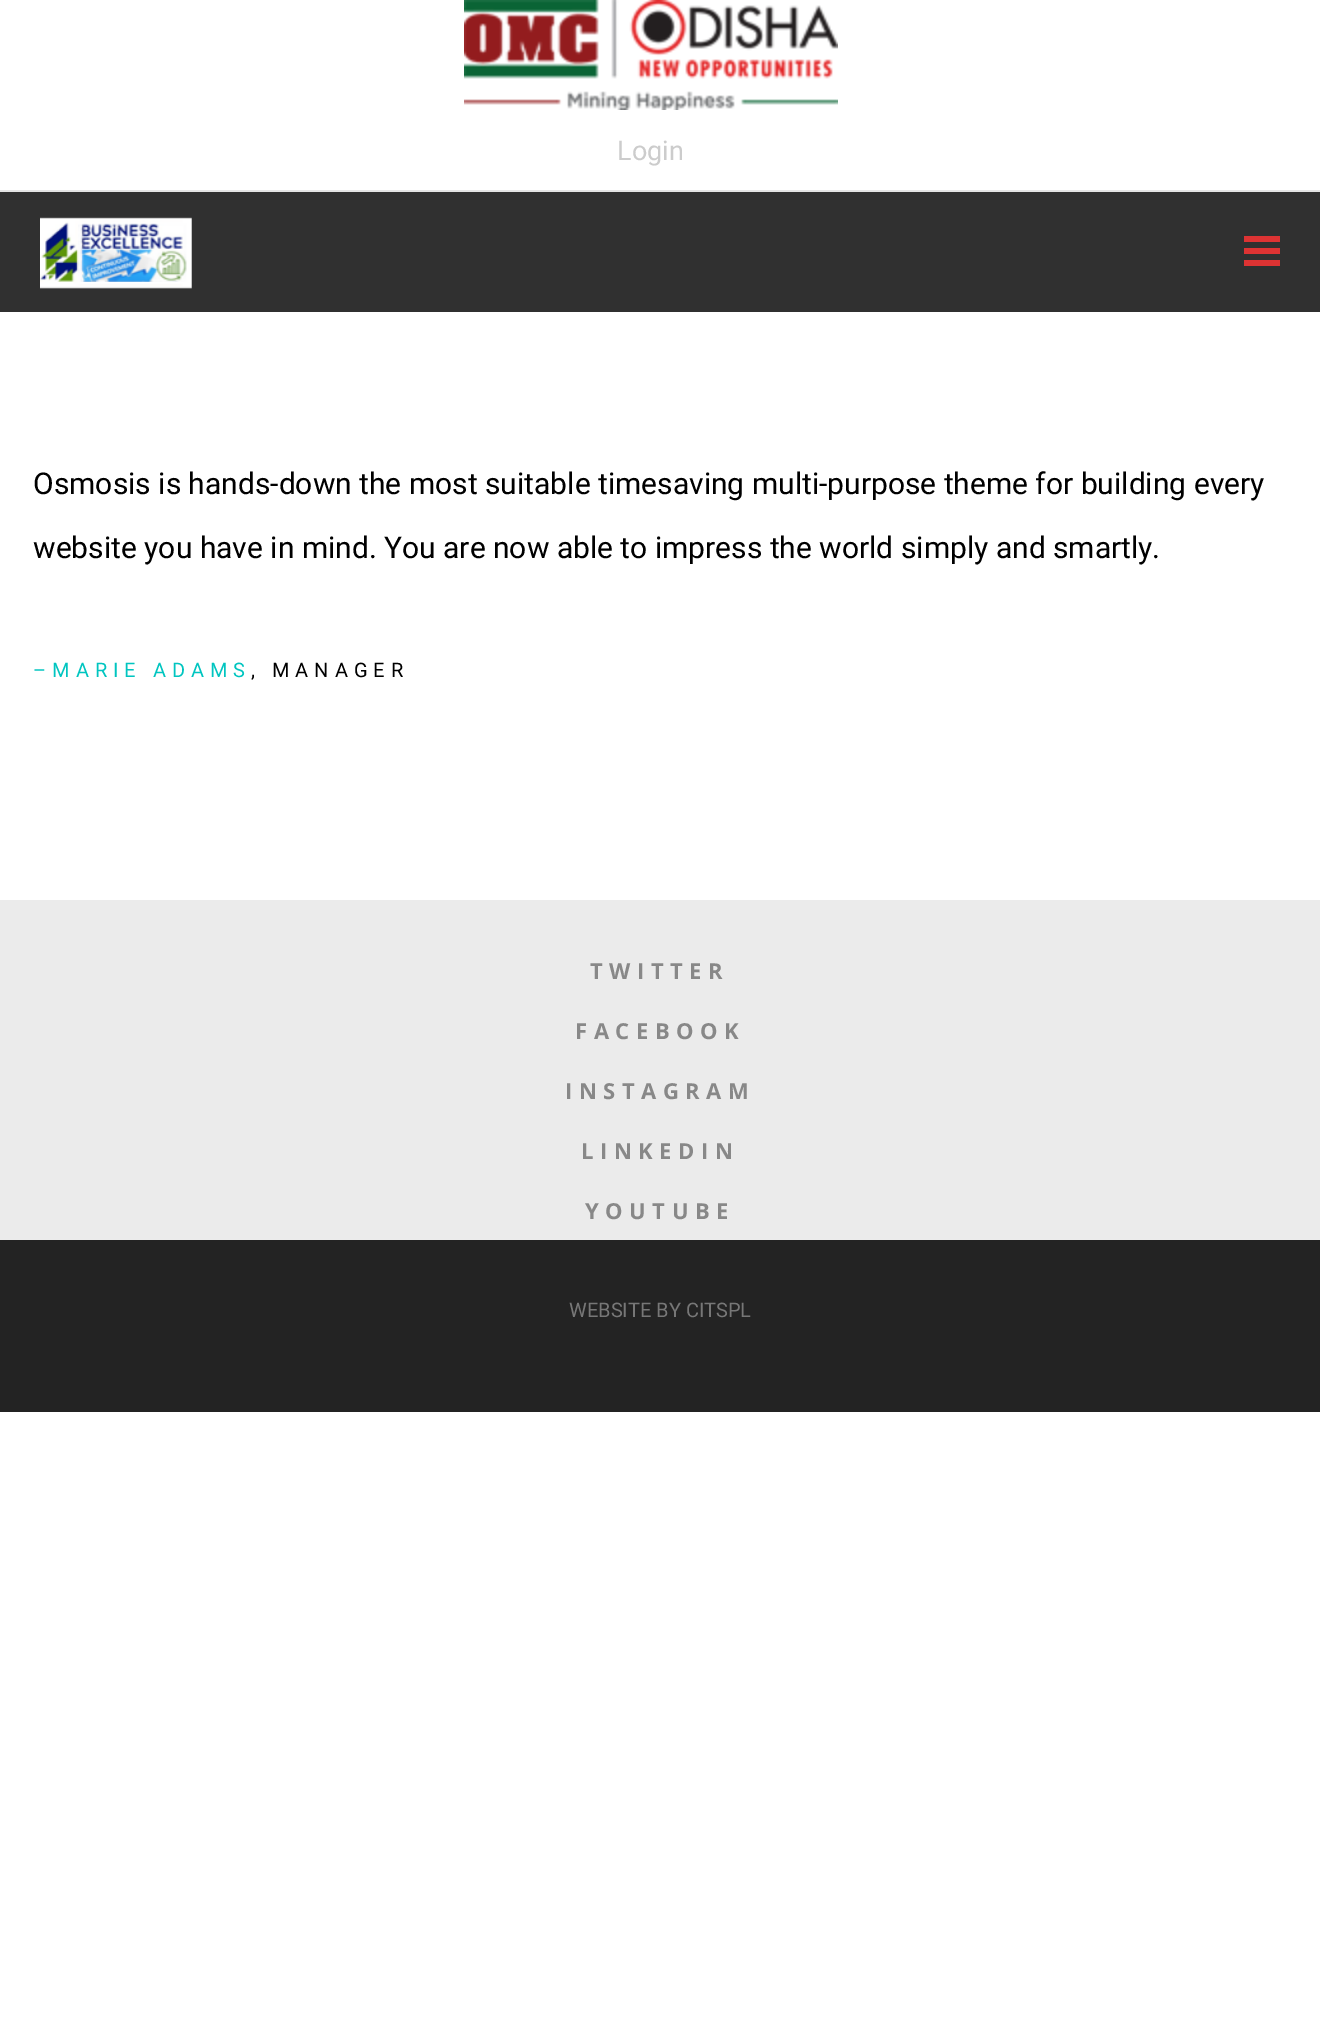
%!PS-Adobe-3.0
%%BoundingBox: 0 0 1320 2026
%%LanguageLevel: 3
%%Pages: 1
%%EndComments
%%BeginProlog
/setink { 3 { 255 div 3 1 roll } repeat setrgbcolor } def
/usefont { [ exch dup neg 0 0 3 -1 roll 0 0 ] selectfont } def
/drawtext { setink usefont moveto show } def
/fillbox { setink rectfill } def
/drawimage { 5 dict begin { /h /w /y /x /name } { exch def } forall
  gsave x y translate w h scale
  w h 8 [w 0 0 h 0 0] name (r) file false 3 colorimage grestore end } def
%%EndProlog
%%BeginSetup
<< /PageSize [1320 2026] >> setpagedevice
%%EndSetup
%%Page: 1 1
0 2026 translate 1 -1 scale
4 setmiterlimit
0 0 1320 2026 255 255 255 fillbox
0 192 1320 120 48 48 48 fillbox
0 190 1320 2 228 228 228 fillbox
(assets/img1.rgb) 464 0 374 110 drawimage
(Login) 617 160 /Roboto-Regular 27 204 204 204 drawtext
(assets/img2.rgb) 40 217 152 72 drawimage
1244 236 36 6 221 51 51 fillbox
1244 248 36 6 221 51 51 fillbox
1244 260 36 6 221 51 51 fillbox
(Osmosis is hands-down the most suitable timesaving multi-purpose theme for building every) 33 494 /Roboto-Regular 30 0 0 0 drawtext
(website you have in mind. You are now able to impress the world simply and smartly.) 33 558 /Roboto-Regular 30 0 0 0 drawtext
/Roboto-Regular 20 usefont
0 197 192 setink
33 677 moveto 6 0 (–MARIE ADAMS) ashow
0 0 0 setink
251 677 moveto 6 0 (, MANAGER) ashow
0 900 1320 340 235 235 235 fillbox
/OpenSans-Bold 22 usefont
136 136 136 setink
590 979 moveto 6.5 0 (TWITTER) ashow
575 1039 moveto 6.5 0 (FACEBOOK) ashow
565 1099 moveto 6.5 0 (INSTAGRAM) ashow
581 1159 moveto 6.5 0 (LINKEDIN) ashow
585 1219 moveto 6.5 0 (YOUTUBE) ashow
0 1240 1320 172 35 35 35 fillbox
(WEBSITE BY CITSPL) 569 1317 /Roboto-Regular 20 119 119 119 drawtext
showpage
%%EOF
